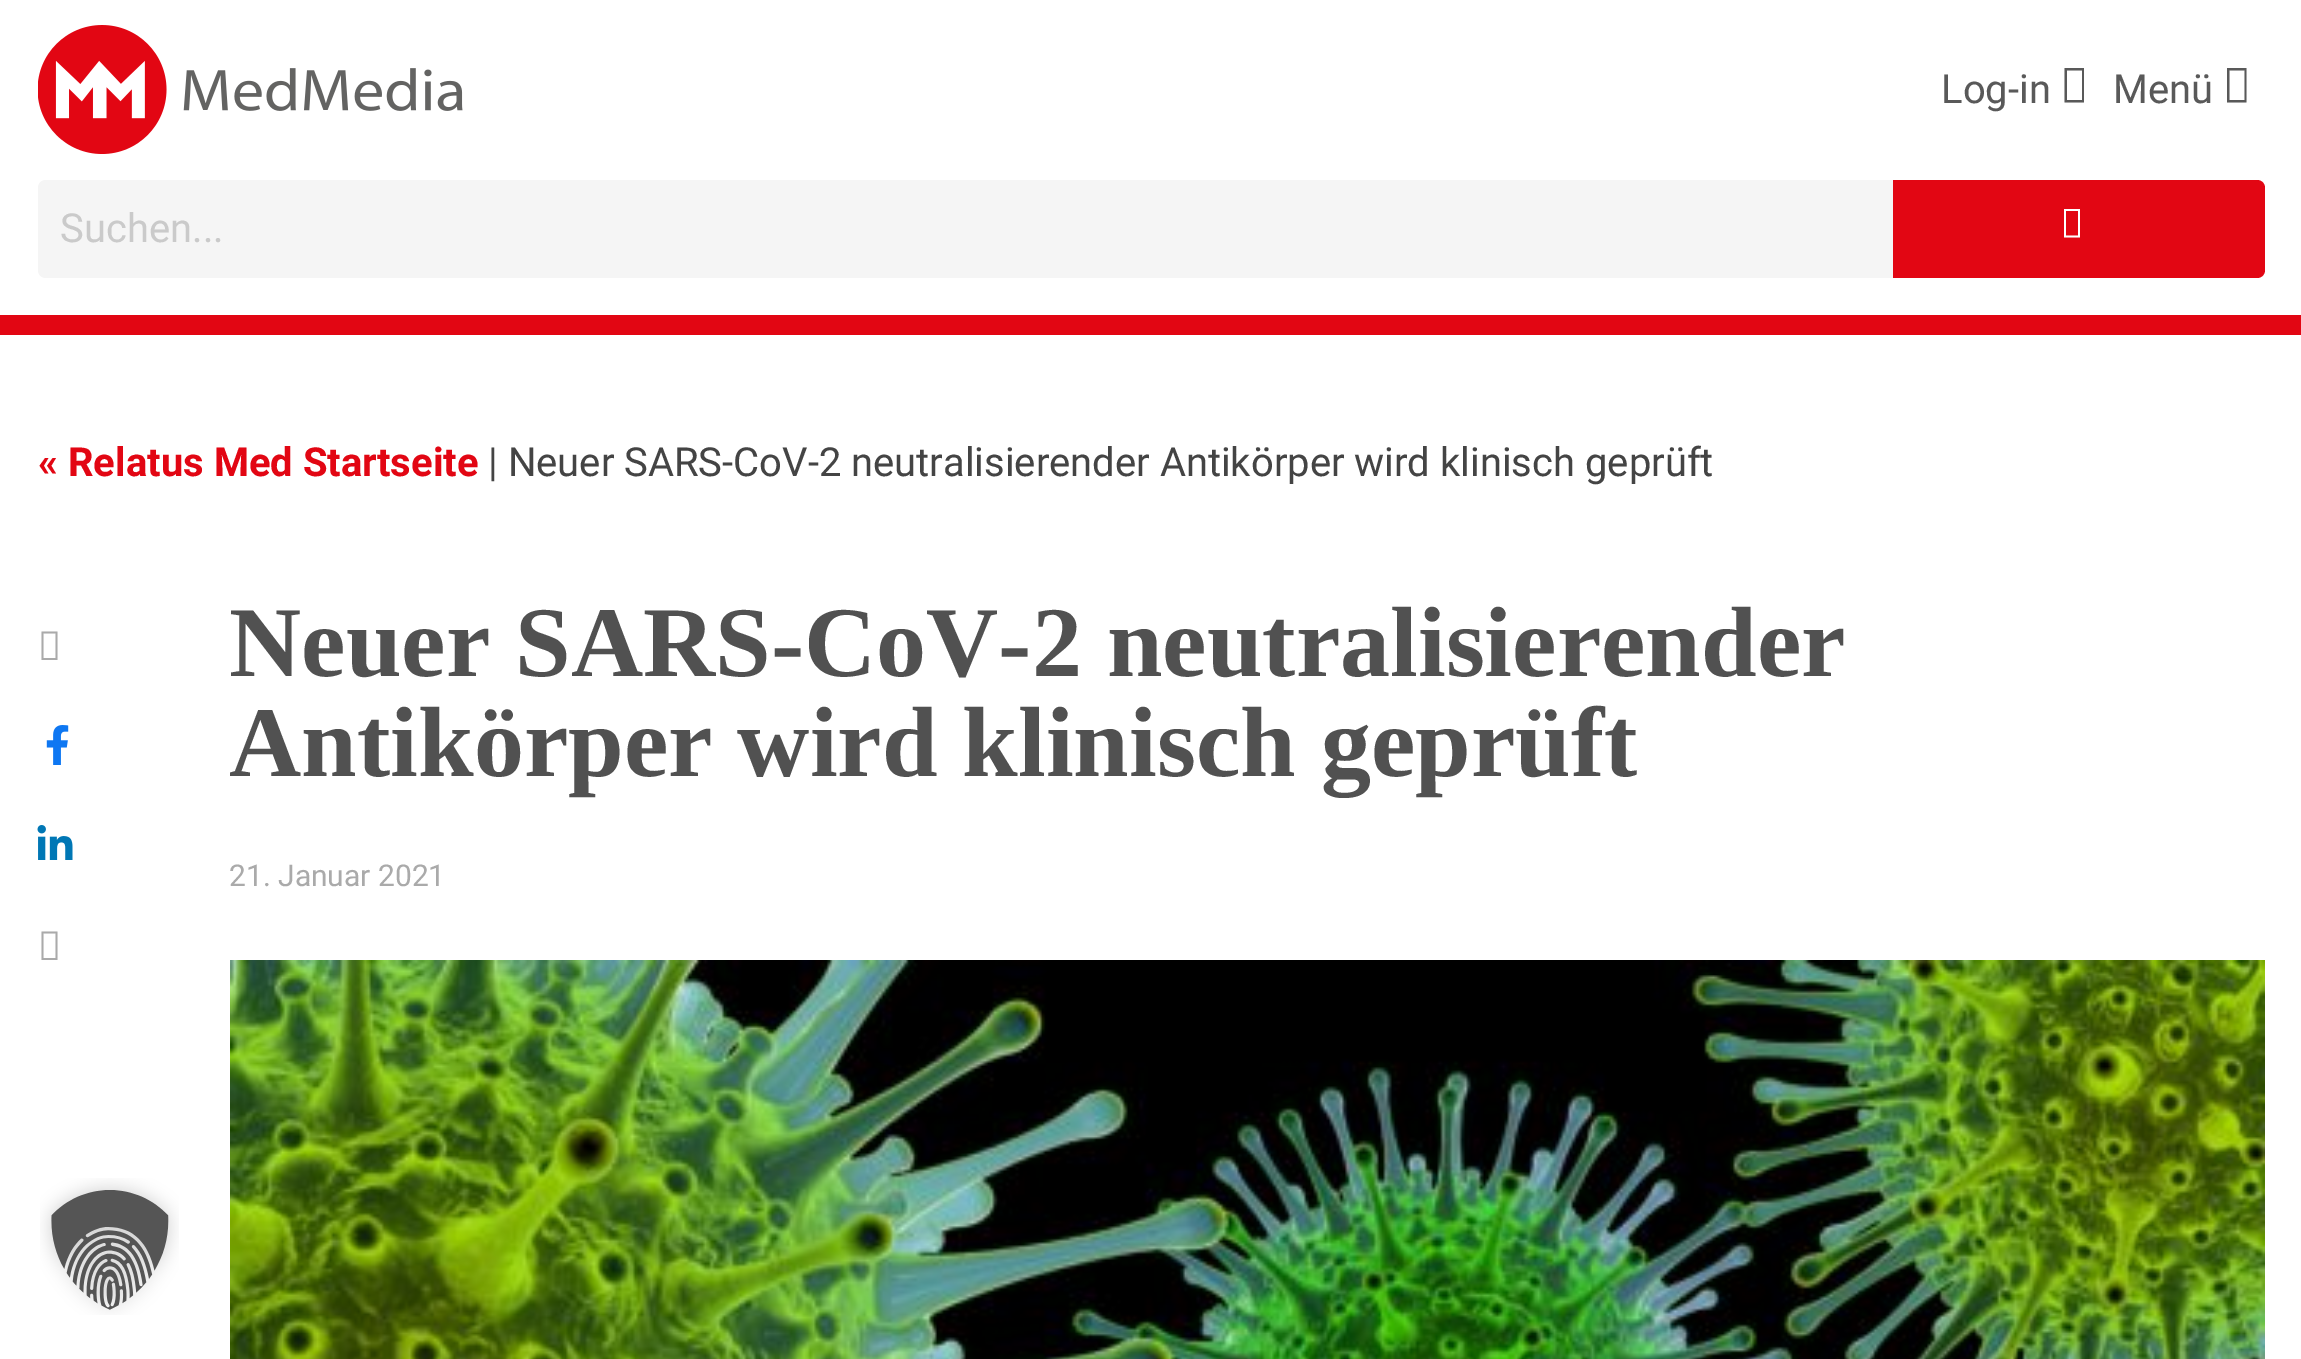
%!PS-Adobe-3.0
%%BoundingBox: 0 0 2301 1359
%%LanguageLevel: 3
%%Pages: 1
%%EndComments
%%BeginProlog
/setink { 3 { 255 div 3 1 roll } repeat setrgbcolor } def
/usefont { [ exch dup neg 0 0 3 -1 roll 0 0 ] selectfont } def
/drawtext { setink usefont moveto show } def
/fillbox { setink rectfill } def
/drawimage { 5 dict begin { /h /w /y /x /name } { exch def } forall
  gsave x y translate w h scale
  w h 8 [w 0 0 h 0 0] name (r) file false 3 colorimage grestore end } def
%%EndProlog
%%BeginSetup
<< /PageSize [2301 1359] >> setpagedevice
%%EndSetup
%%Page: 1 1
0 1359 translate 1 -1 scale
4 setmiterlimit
0 0 2301 1359 255 255 255 fillbox
0 315 2301 20 226 6 19 fillbox
(assets/img1.rgb) 38 25 425 129 drawimage
(Log-in) 1941 103 /Roboto-Regular 40 89 89 89 drawtext
2064.5 102.5 moveto 2064.5 68 lineto 2084 68 lineto 2084 102.5 lineto closepath 2067 100 moveto 2082 100 lineto 2082 70.5 lineto 2067 70.5 lineto closepath fill
(Menü) 2113 103 /Roboto-Regular 40 89 89 89 drawtext
2227 102.5 moveto 2227 68 lineto 2246.5 68 lineto 2246.5 102.5 lineto closepath 2229.5 100 moveto 2244.5 100 lineto 2244.5 70.5 lineto 2229.5 70.5 lineto closepath fill
245 245 245 setink
46 180 moveto 1893 180 lineto 1893 278 lineto 46 278 lineto 41.5 278 38 274.5 38 270 curveto 38 188 lineto 38 183.5 41.5 180 46 180 curveto closepath fill
(Suchen...) 60 242 /Roboto-Regular 40 202 202 202 drawtext
226 6 19 setink
1893 180 moveto 2257 180 lineto 2261.5 180 2265 183.5 2265 188 curveto 2265 270 lineto 2265 274.5 2261.5 278 2257 278 curveto 1893 278 lineto closepath fill
255 255 255 setink
2064 237.5 moveto 2064 209 lineto 2080 209 lineto 2080 237.5 lineto closepath 2066 235.5 moveto 2078 235.5 lineto 2078 211 lineto 2066 211 lineto closepath fill
(« Relatus Med Startseite) 38 476 /Roboto-Bold 40 226 6 19 drawtext
(| Neuer SARS-CoV-2 neutralisierender Antikörper wird klinisch geprüft) 488 476 /Roboto-Regular 40 68 68 68 drawtext
170 170 170 setink
41.5 660 moveto 41.5 631.5 lineto 57.5 631.5 lineto 57.5 660 lineto closepath 43.5 658 moveto 55.5 658 lineto 55.5 633.5 lineto 43.5 633.5 lineto closepath fill
(assets/img2.rgb) 46 725 23 40 drawimage
(assets/img3.rgb) 37 825 36 35 drawimage
41.5 960 moveto 41.5 931.5 lineto 57.5 931.5 lineto 57.5 960 lineto closepath 43.5 958 moveto 55.5 958 lineto 55.5 933.5 lineto 43.5 933.5 lineto closepath fill
(Neuer SARS-CoV-2 neutralisierender) 229 676 /LiberationSerif-Bold 100 81 81 81 drawtext
(Antikörper wird klinisch geprüft) 229 776 /LiberationSerif-Bold 100 81 81 81 drawtext
(21. Januar 2021) 229 886 /Roboto-Regular 30 170 170 170 drawtext
(assets/img4.rgb) 230 960 2035 399 drawimage
(assets/img5.rgb) 40 1178 139 137 drawimage
showpage
%%EOF
